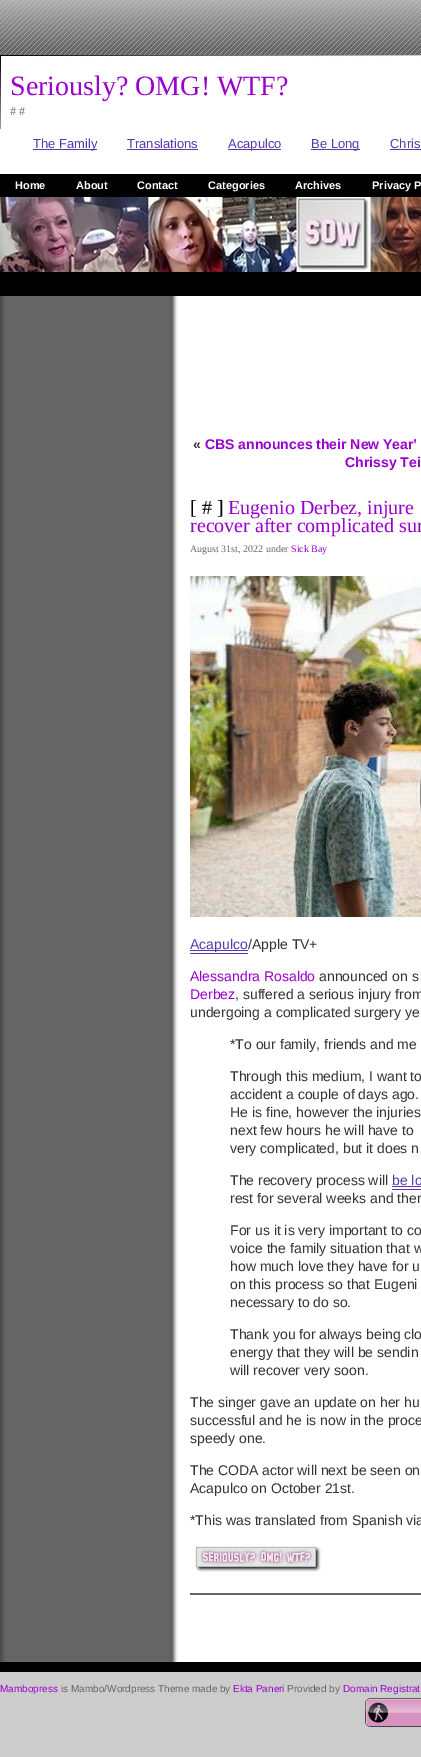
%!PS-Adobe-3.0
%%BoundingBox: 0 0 421 1757
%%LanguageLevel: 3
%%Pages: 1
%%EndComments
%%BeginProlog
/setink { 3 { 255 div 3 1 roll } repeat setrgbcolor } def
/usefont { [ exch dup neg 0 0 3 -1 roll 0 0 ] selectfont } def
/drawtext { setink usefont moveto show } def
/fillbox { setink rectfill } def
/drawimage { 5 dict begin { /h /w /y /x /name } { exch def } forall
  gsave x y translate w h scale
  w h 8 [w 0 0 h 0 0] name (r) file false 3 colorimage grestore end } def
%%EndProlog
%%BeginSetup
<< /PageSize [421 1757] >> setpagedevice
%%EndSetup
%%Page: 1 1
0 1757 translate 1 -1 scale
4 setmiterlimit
0 0 421 1757 204 204 204 fillbox
(assets/img1.rgb) 0 0 421 55 drawimage
(assets/img2.rgb) 0 296 421 1366 drawimage
0 129 421 45 255 255 255 fillbox
(assets/img3.rgb) 0 55 421 74 drawimage
(Seriously? OMG! WTF?) 10 95 /LiberationSerif-Regular 28 153 0 204 drawtext
(# #) 10 115 /LiberationSerif-Regular 12 102 102 102 drawtext
33 149 64 1 89 57 170 fillbox
(The Family) 33 148 /LiberationSans-Regular 13 89 57 170 drawtext
(Translations) 127 148 /LiberationSans-Regular 13 89 57 170 drawtext
127 149 71 1 89 57 170 fillbox
228 149 53 1 89 57 170 fillbox
(Acapulco) 228 148 /LiberationSans-Regular 13 89 57 170 drawtext
311 149 49 1 89 57 170 fillbox
(Be Long) 311 148 /LiberationSans-Regular 13 89 57 170 drawtext
(Chris) 390 148 /LiberationSans-Regular 13 89 57 170 drawtext
390 149 31 1 89 57 170 fillbox
0 174 421 23 0 0 0 fillbox
(Home) 15 189 /LiberationSans-Bold 11 255 255 255 drawtext
(About) 76 189 /LiberationSans-Bold 11 255 255 255 drawtext
(Contact) 137 189 /LiberationSans-Bold 11 255 255 255 drawtext
(Categories) 208 189 /LiberationSans-Bold 11 255 255 255 drawtext
(Archives) 295 189 /LiberationSans-Bold 11 255 255 255 drawtext
(Privacy P) 372 189 /LiberationSans-Bold 11 255 255 255 drawtext
0 272 421 24 0 0 0 fillbox
(assets/img4.rgb) 0 197 421 75 drawimage
(«) 193 449 /LiberationSans-Bold 14 51 51 51 drawtext
(CBS announces their New Year’) 205 449 /LiberationSans-Bold 14 153 0 204 drawtext
(Chrissy Tei) 345 467 /LiberationSans-Bold 14 153 0 204 drawtext
([ # ]) 190 514 /LiberationSerif-Regular 20 0 0 0 drawtext
(Eugenio Derbez, injure) 228 514 /LiberationSerif-Regular 20 153 0 204 drawtext
(recover after complicated sur) 190 532 /LiberationSerif-Regular 20 153 0 204 drawtext
(August 31st, 2022 under) 190 552 /LiberationSerif-Regular 10 102 102 102 drawtext
(Sick Bay) 291 552 /LiberationSerif-Regular 10 153 0 204 drawtext
(assets/img5.rgb) 190 576 231 341 drawimage
190 950 58 1 89 57 170 fillbox
(Acapulco) 190 949 /LiberationSans-Regular 14 89 57 170 drawtext
190 953 58 1 89 57 170 fillbox
(/Apple TV+) 248 949 /LiberationSans-Regular 14 51 51 51 drawtext
(Alessandra Rosaldo) 190 981 /LiberationSans-Regular 14 153 0 204 drawtext
(announced on s) 319 981 /LiberationSans-Regular 14 51 51 51 drawtext
(Derbez) 190 999 /LiberationSans-Regular 14 153 0 204 drawtext
(, suffered a serious injury from) 235 999 /LiberationSans-Regular 14 51 51 51 drawtext
(undergoing a complicated surgery ye) 190 1017 /LiberationSans-Regular 14 51 51 51 drawtext
(*To our family, friends and me) 230 1049 /LiberationSans-Regular 14 51 51 51 drawtext
(Through this medium, I want to) 230 1081 /LiberationSans-Regular 14 51 51 51 drawtext
(accident a couple of days ago.) 230 1099 /LiberationSans-Regular 14 51 51 51 drawtext
(He is fine, however the injuries) 230 1117 /LiberationSans-Regular 14 51 51 51 drawtext
(next few hours he will have to) 230 1135 /LiberationSans-Regular 14 51 51 51 drawtext
(very complicated, but it does n) 230 1153 /LiberationSans-Regular 14 51 51 51 drawtext
(The recovery process will) 230 1185 /LiberationSans-Regular 14 51 51 51 drawtext
(be lo) 392 1185 /LiberationSans-Regular 14 89 57 170 drawtext
392 1189 29 1 89 57 170 fillbox
392 1186 29 1 89 57 170 fillbox
(rest for several weeks and then) 230 1203 /LiberationSans-Regular 14 51 51 51 drawtext
(For us it is very important to co) 230 1235 /LiberationSans-Regular 14 51 51 51 drawtext
(voice the family situation that w) 230 1253 /LiberationSans-Regular 14 51 51 51 drawtext
(how much love they have for u) 230 1271 /LiberationSans-Regular 14 51 51 51 drawtext
(on this process so that Eugeni) 230 1289 /LiberationSans-Regular 14 51 51 51 drawtext
(necessary to do so.) 230 1307 /LiberationSans-Regular 14 51 51 51 drawtext
(Thank you for always being clo) 230 1339 /LiberationSans-Regular 14 51 51 51 drawtext
(energy that they will be sendin) 230 1357 /LiberationSans-Regular 14 51 51 51 drawtext
(will recover very soon.) 230 1375 /LiberationSans-Regular 14 51 51 51 drawtext
(The singer gave an update on her hu) 190 1407 /LiberationSans-Regular 14 51 51 51 drawtext
(successful and he is now in the proce) 190 1425 /LiberationSans-Regular 14 51 51 51 drawtext
(speedy one.) 190 1443 /LiberationSans-Regular 14 51 51 51 drawtext
(The CODA actor will next be seen on) 190 1475 /LiberationSans-Regular 14 51 51 51 drawtext
(Acapulco on October 21st.) 190 1493 /LiberationSans-Regular 14 51 51 51 drawtext
(*This was translated from Spanish via) 190 1525 /LiberationSans-Regular 14 51 51 51 drawtext
(assets/img6.rgb) 195 1546 126 26 drawimage
190 1593 231 2 102 102 102 fillbox
0 1662 421 10 0 0 0 fillbox
(Mambopress) 0 1692 /LiberationSans-Regular 10 153 0 204 drawtext
(is Mambo/Wordpress Theme made by) 61 1692 /LiberationSans-Regular 10 102 102 102 drawtext
(Ekta Paneri) 233 1692 /LiberationSans-Regular 10 153 0 204 drawtext
(Provided by) 287 1692 /LiberationSans-Regular 10 102 102 102 drawtext
(Domain Registrat) 343 1692 /LiberationSans-Regular 10 153 0 204 drawtext
(assets/img7.rgb) 365 1698 56 29 drawimage
showpage
%%EOF
